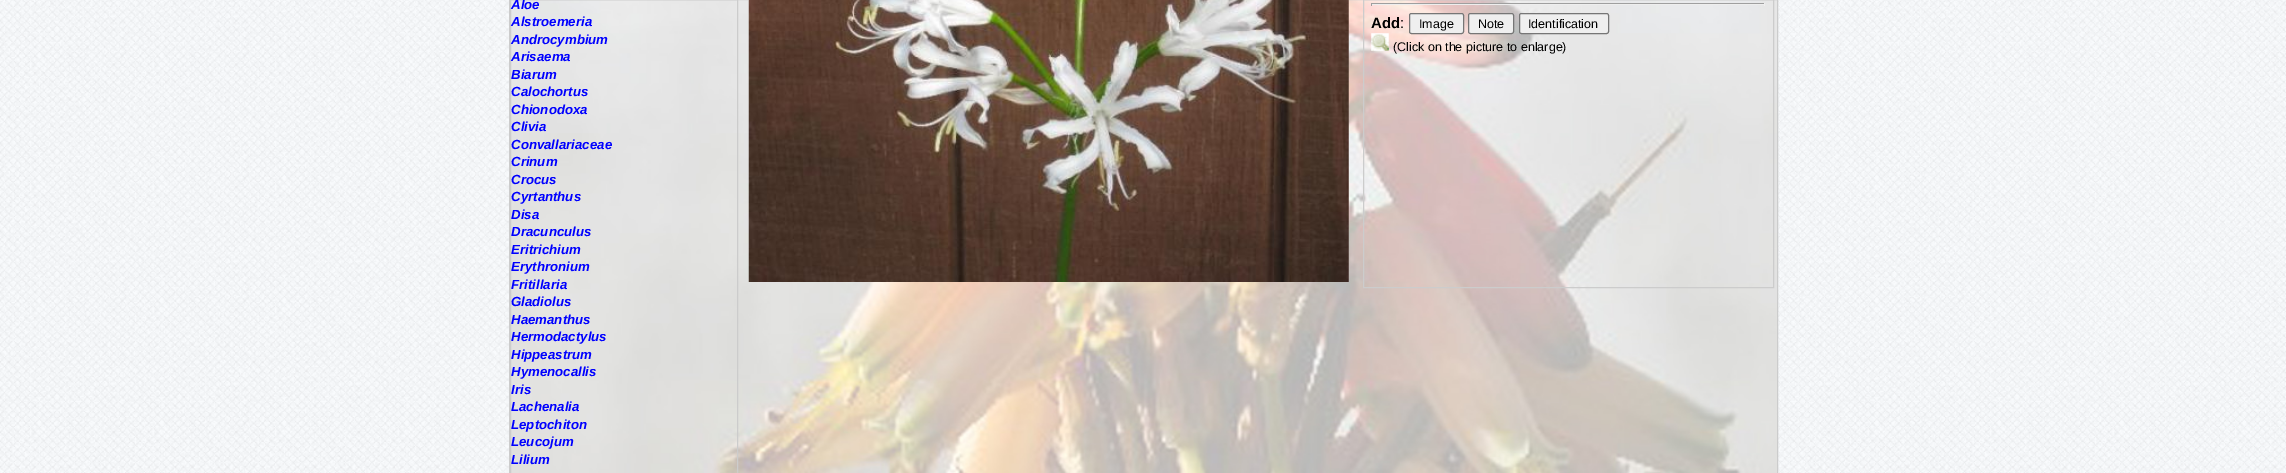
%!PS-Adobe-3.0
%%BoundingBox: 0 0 2286 473
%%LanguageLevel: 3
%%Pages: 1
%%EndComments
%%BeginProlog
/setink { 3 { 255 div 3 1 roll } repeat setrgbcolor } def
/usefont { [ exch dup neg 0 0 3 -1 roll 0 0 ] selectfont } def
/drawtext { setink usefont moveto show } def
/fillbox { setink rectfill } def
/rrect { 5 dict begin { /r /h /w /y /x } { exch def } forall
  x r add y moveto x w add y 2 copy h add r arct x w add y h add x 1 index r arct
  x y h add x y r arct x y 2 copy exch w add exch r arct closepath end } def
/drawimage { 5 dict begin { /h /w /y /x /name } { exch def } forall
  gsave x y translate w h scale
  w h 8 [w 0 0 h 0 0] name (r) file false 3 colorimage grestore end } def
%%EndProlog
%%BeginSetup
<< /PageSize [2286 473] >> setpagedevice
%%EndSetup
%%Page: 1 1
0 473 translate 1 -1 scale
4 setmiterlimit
0 0 2286 473 255 255 255 fillbox
(assets/img1.rgb) 0 0 2286 473 drawimage
(assets/img2.rgb) 511 0 1266 473 drawimage
204 204 204 setink
509.5 -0.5 1268 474 rectstroke
510.5 -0.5 227 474 rectstroke
(Aloe) 511 9 /LiberationSans-BoldItalic 13.25 0 0 255 drawtext
(Alstroemeria) 511 26 /LiberationSans-BoldItalic 13.25 0 0 255 drawtext
(Androcymbium) 511 44 /LiberationSans-BoldItalic 13.25 0 0 255 drawtext
(Arisaema) 511 61 /LiberationSans-BoldItalic 13.25 0 0 255 drawtext
(Biarum) 511 79 /LiberationSans-BoldItalic 13.25 0 0 255 drawtext
(Calochortus) 511 96 /LiberationSans-BoldItalic 13.25 0 0 255 drawtext
(Chionodoxa) 511 114 /LiberationSans-BoldItalic 13.25 0 0 255 drawtext
(Clivia) 511 131 /LiberationSans-BoldItalic 13.25 0 0 255 drawtext
(Convallariaceae) 511 149 /LiberationSans-BoldItalic 13.25 0 0 255 drawtext
(Crinum) 511 166 /LiberationSans-BoldItalic 13.25 0 0 255 drawtext
(Crocus) 511 184 /LiberationSans-BoldItalic 13.25 0 0 255 drawtext
(Cyrtanthus) 511 201 /LiberationSans-BoldItalic 13.25 0 0 255 drawtext
(Disa) 511 219 /LiberationSans-BoldItalic 13.25 0 0 255 drawtext
(Dracunculus) 511 236 /LiberationSans-BoldItalic 13.25 0 0 255 drawtext
(Eritrichium) 511 254 /LiberationSans-BoldItalic 13.25 0 0 255 drawtext
(Erythronium) 511 271 /LiberationSans-BoldItalic 13.25 0 0 255 drawtext
(Fritillaria) 511 289 /LiberationSans-BoldItalic 13.25 0 0 255 drawtext
(Gladiolus) 511 306 /LiberationSans-BoldItalic 13.25 0 0 255 drawtext
(Haemanthus) 511 324 /LiberationSans-BoldItalic 13.25 0 0 255 drawtext
(Hermodactylus) 511 341 /LiberationSans-BoldItalic 13.25 0 0 255 drawtext
(Hippeastrum) 511 359 /LiberationSans-BoldItalic 13.25 0 0 255 drawtext
(Hymenocallis) 511 376 /LiberationSans-BoldItalic 13.25 0 0 255 drawtext
(Iris) 511 394 /LiberationSans-BoldItalic 13.25 0 0 255 drawtext
(Lachenalia) 511 411 /LiberationSans-BoldItalic 13.25 0 0 255 drawtext
(Leptochiton) 511 429 /LiberationSans-BoldItalic 13.25 0 0 255 drawtext
(Leucojum) 511 446 /LiberationSans-BoldItalic 13.25 0 0 255 drawtext
(Lilium) 511 464 /LiberationSans-BoldItalic 13.25 0 0 255 drawtext
(assets/img3.rgb) 748 0 601 282 drawimage
204 204 204 setink
1363.5 -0.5 410 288 rectstroke
1371 3 394 1 159 159 159 fillbox
1764 3 1 3 238 238 238 fillbox
1371 4 394 1 238 238 238 fillbox
1371 3 1 3 159 159 159 fillbox
(Add) 1371 28 /LiberationSans-Bold 15 0 0 0 drawtext
(:) 1400 28 /LiberationSans-Regular 15 0 0 0 drawtext
239 239 239 setink
1409.5 13.5 54 20 2 rrect gsave fill grestore
118 118 118 setink
stroke
(Image) 1419 28 /LiberationSans-Regular 12.5 0 0 0 drawtext
239 239 239 setink
1468.5 13.5 45 20 2 rrect gsave fill grestore
118 118 118 setink
stroke
(Note) 1478 28 /LiberationSans-Regular 12.5 0 0 0 drawtext
239 239 239 setink
1519.5 13.5 89 20 2 rrect gsave fill grestore
118 118 118 setink
stroke
(Identification) 1528 28 /LiberationSans-Regular 12.5 0 0 0 drawtext
(assets/img4.rgb) 1371 33 18 18 drawimage
(\(Click on the picture to enlarge\)) 1393 51 /LiberationSans-Regular 12.5 0 0 0 drawtext
showpage
%%EOF
